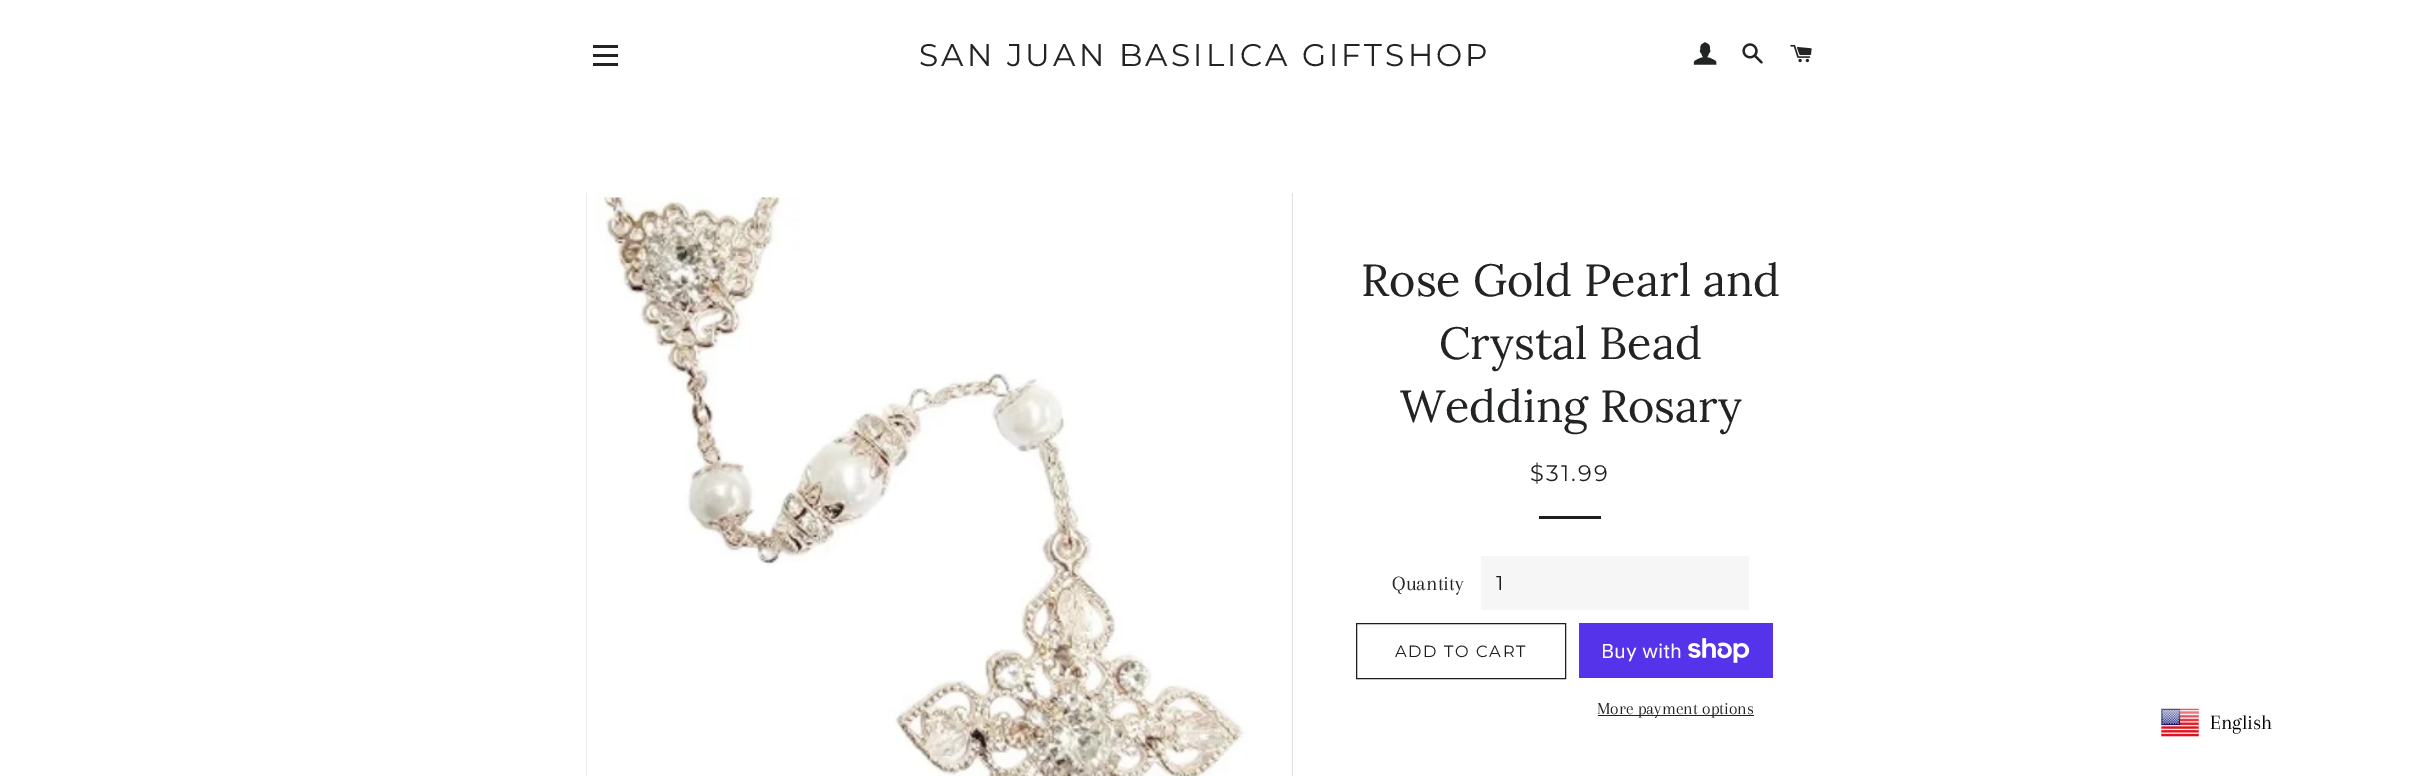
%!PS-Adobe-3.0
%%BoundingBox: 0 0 2410 776
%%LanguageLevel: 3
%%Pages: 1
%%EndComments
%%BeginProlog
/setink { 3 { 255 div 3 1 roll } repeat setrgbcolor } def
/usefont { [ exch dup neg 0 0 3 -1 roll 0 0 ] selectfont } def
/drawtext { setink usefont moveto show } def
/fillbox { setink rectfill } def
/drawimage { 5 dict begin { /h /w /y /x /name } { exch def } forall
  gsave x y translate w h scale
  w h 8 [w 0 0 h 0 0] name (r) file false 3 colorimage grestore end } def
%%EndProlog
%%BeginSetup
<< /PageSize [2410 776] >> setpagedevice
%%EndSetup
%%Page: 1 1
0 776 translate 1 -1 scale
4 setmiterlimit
0 0 2410 776 255 255 255 fillbox
593 45 25 3 34 35 35 fillbox
593 54 25 3 34 35 35 fillbox
593 63 25 3 34 35 35 fillbox
/Montserrat-Thin 31.25 usefont
919 66 moveto 3.1 0 (SAN JUAN BASILICA GIFTSHOP) ashow
(assets/img1.rgb) 1693 42 24 23 drawimage
(assets/img2.rgb) 1742 43 21 21 drawimage
(assets/img3.rgb) 1790 44 22 19 drawimage
586 193 707 583 213 213 213 fillbox
(assets/img4.rgb) 586 193 707 583 drawimage
(Rose Gold Pearl and) 1361 296 /Lora-Regular 45 34 35 35 drawtext
(Crystal Bead) 1439 359 /Lora-Regular 45 34 35 35 drawtext
(Wedding Rosary) 1400 422 /Lora-Regular 45 34 35 35 drawtext
/Montserrat-Thin 22.5 usefont
1530 481 moveto 2.25 0 ($31.99) ashow
1539 516 62 3 28 29 29 fillbox
(Quantity) 1392 590 /Arapey-Regular 21 34 35 35 drawtext
1481 556 268 54 246 246 246 fillbox
/Montserrat-Thin 20 usefont
28 29 29 setink
1496 590 moveto 2 0 (1) ashow
1356.5 623.5 209 55 rectstroke
/Montserrat-Thin 16.25 usefont
1395 657 moveto 1.6 0 (ADD TO CART) ashow
1579 623 194 55 84 51 235 fillbox
(Buy with) 1601 658 /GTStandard-Regular 20 255 255 255 drawtext
(assets/img5.rgb) 1688 638 62 25 drawimage
1598 715 156 1 34 35 35 fillbox
(More payment options) 1597 714 /Arapey-Regular 17.5 34 35 35 drawtext
(assets/img6.rgb) 2161 708 38 29 drawimage
(English) 2210 729 /Arapey-Regular 21 0 0 0 drawtext
showpage
%%EOF
